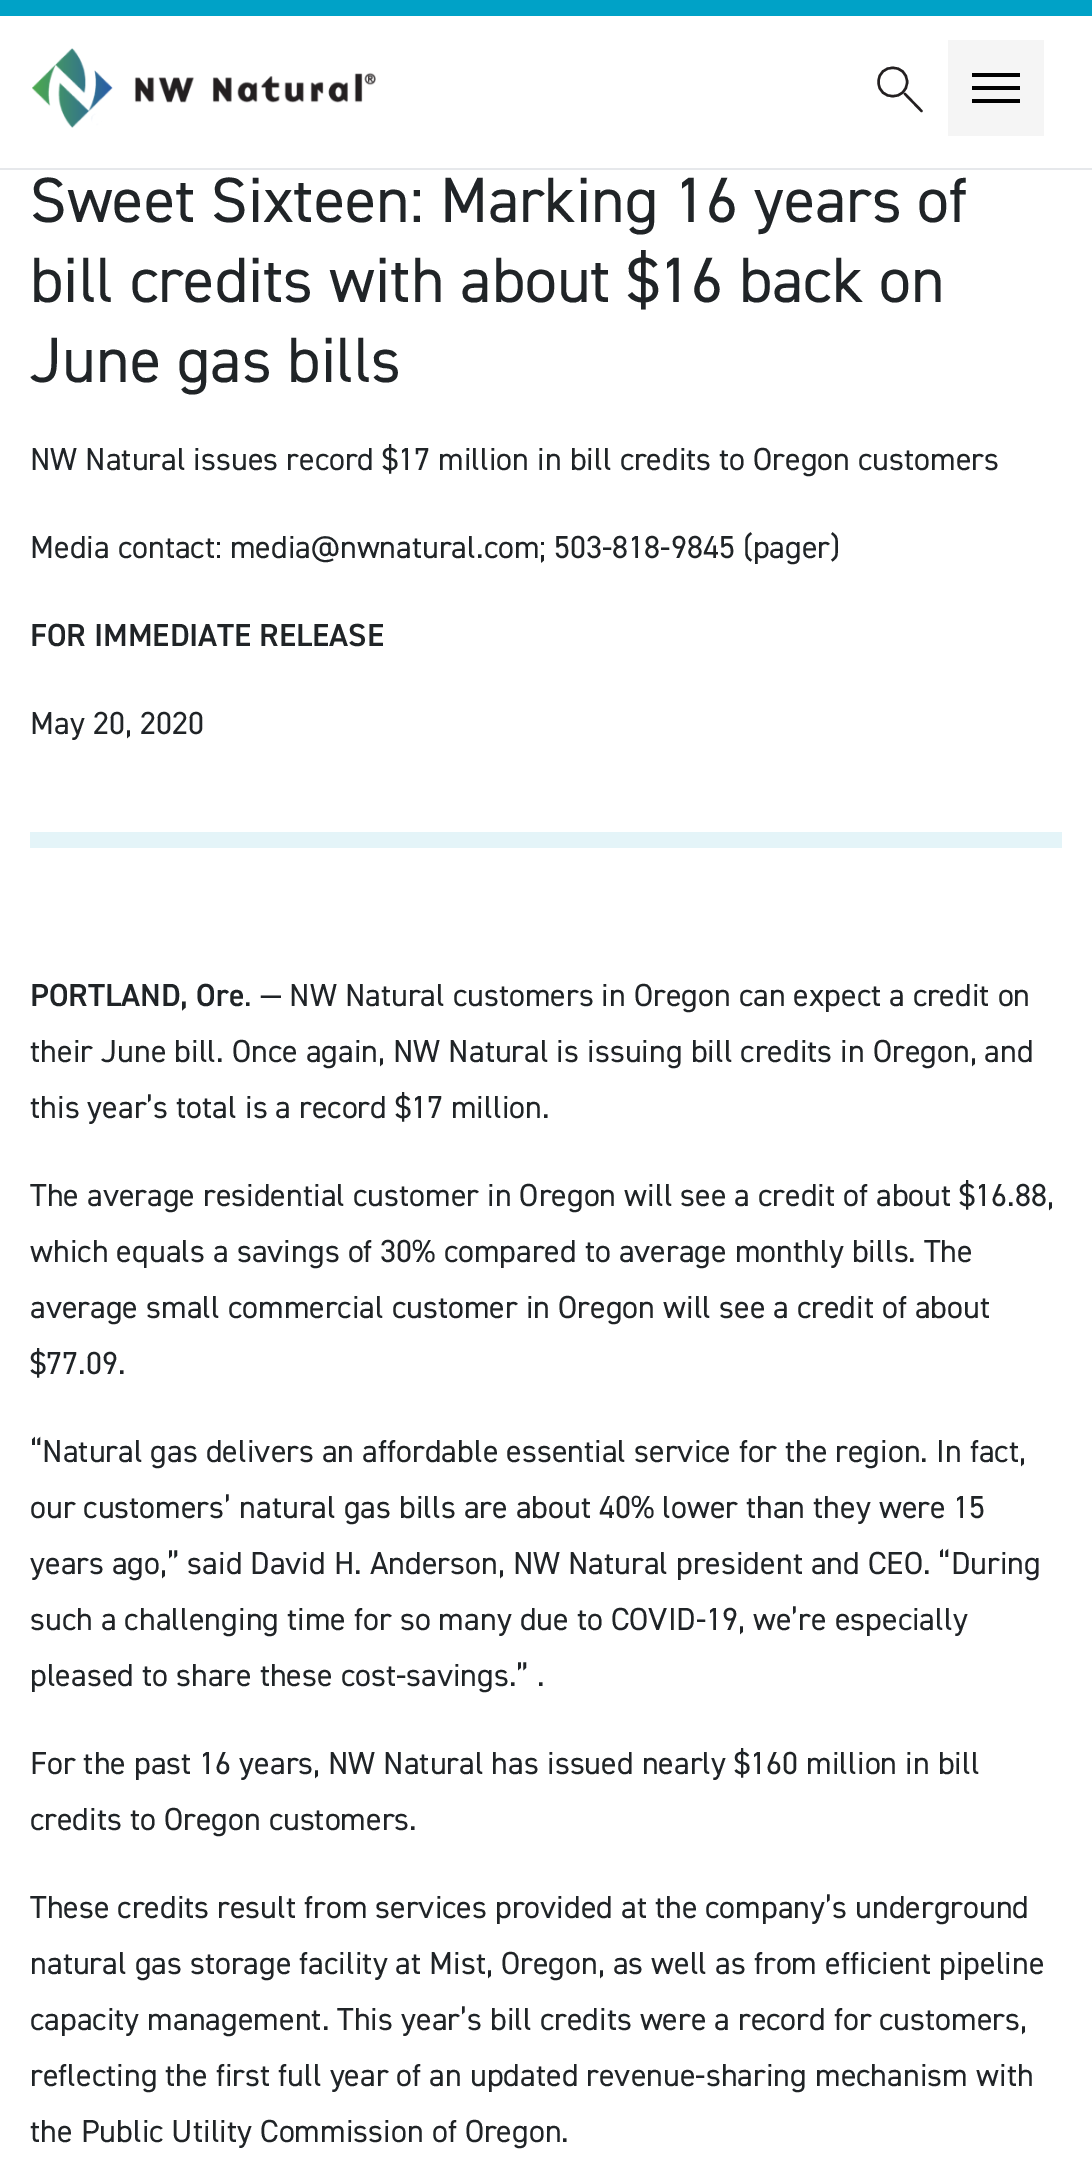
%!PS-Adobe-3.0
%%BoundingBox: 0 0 1092 2172
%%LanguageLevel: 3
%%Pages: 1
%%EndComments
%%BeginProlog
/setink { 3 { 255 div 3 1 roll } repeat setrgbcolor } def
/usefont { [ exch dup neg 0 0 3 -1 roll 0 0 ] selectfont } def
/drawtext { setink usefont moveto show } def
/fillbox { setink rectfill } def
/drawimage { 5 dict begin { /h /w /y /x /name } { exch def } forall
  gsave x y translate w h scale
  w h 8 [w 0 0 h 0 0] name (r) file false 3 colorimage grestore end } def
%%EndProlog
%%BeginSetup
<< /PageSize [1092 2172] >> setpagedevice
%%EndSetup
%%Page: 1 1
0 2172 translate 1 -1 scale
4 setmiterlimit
0 0 1092 2172 255 255 255 fillbox
0 168 1092 2 230 232 235 fillbox
0 0 1092 16 0 162 199 fillbox
(assets/img1.rgb) 32 48 344 80 drawimage
35 31 32 setink
2.4 setlinewidth
907 82 moveto 907 101 878.5 101 878.5 82 curveto 878.5 63 907 63 907 82 curveto closepath stroke
1 setlinecap
905 94 moveto 921.5 111 lineto stroke
948 40 96 96 245 245 245 fillbox
0 0 0 setink
972 73 moveto 1020 73 lineto 1020 77 lineto 972 77 lineto closepath 972 86 moveto 1020 86 lineto 1020 90 lineto 972 90 lineto closepath 972 99 moveto 1020 99 lineto 1020 103 lineto 972 103 lineto closepath eofill
(Sweet Sixteen: Marking 16 years of) 30 222 /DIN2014-Regular 64 32 36 39 drawtext
(bill credits with about $16 back on) 30 302 /DIN2014-Regular 64 32 36 39 drawtext
(June gas bills) 30 382 /DIN2014-Regular 64 32 36 39 drawtext
(NW Natural issues record $17 million in bill credits to Oregon customers) 30 470 /DIN2014-Regular 32 32 36 39 drawtext
(Media contact: media@nwnatural.com; 503-818-9845 \(pager\)) 30 558 /DIN2014-Regular 32 32 36 39 drawtext
(FOR IMMEDIATE RELEASE) 30 646 /DIN2014-SemiBold 32 32 36 39 drawtext
(May 20, 2020) 30 734 /DIN2014-Regular 32 32 36 39 drawtext
30 832 1032 16 228 244 248 fillbox
(PORTLAND, Ore) 30 1006 /DIN2014-SemiBold 32 32 36 39 drawtext
(. — NW Natural customers in Oregon can expect a credit on) 244 1006 /DIN2014-Regular 32 32 36 39 drawtext
(their June bill. Once again, NW Natural is issuing bill credits in Oregon, and) 30 1062 /DIN2014-Regular 32 32 36 39 drawtext
(this year’s total is a record $17 million.) 30 1118 /DIN2014-Regular 32 32 36 39 drawtext
(The average residential customer in Oregon will see a credit of about $16.88,) 30 1206 /DIN2014-Regular 32 32 36 39 drawtext
(which equals a savings of 30% compared to average monthly bills. The) 30 1262 /DIN2014-Regular 32 32 36 39 drawtext
(average small commercial customer in Oregon will see a credit of about) 30 1318 /DIN2014-Regular 32 32 36 39 drawtext
($77.09.) 30 1374 /DIN2014-Regular 32 32 36 39 drawtext
(“Natural gas delivers an affordable essential service for the region. In fact,) 30 1462 /DIN2014-Regular 32 32 36 39 drawtext
(our customers’ natural gas bills are about 40% lower than they were 15) 30 1518 /DIN2014-Regular 32 32 36 39 drawtext
(years ago,” said David H. Anderson, NW Natural president and CEO. “During) 30 1574 /DIN2014-Regular 32 32 36 39 drawtext
(such a challenging time for so many due to COVID-19, we’re especially) 30 1630 /DIN2014-Regular 32 32 36 39 drawtext
(pleased to share these cost-savings.” .) 30 1686 /DIN2014-Regular 32 32 36 39 drawtext
(For the past 16 years, NW Natural has issued nearly $160 million in bill) 30 1774 /DIN2014-Regular 32 32 36 39 drawtext
(credits to Oregon customers.) 30 1830 /DIN2014-Regular 32 32 36 39 drawtext
(These credits result from services provided at the company’s underground) 30 1918 /DIN2014-Regular 32 32 36 39 drawtext
(natural gas storage facility at Mist, Oregon, as well as from efficient pipeline) 30 1974 /DIN2014-Regular 32 32 36 39 drawtext
(capacity management. This year’s bill credits were a record for customers,) 30 2030 /DIN2014-Regular 32 32 36 39 drawtext
(reflecting the first full year of an updated revenue-sharing mechanism with) 30 2086 /DIN2014-Regular 32 32 36 39 drawtext
(the Public Utility Commission of Oregon.) 30 2142 /DIN2014-Regular 32 32 36 39 drawtext
showpage
%%EOF
